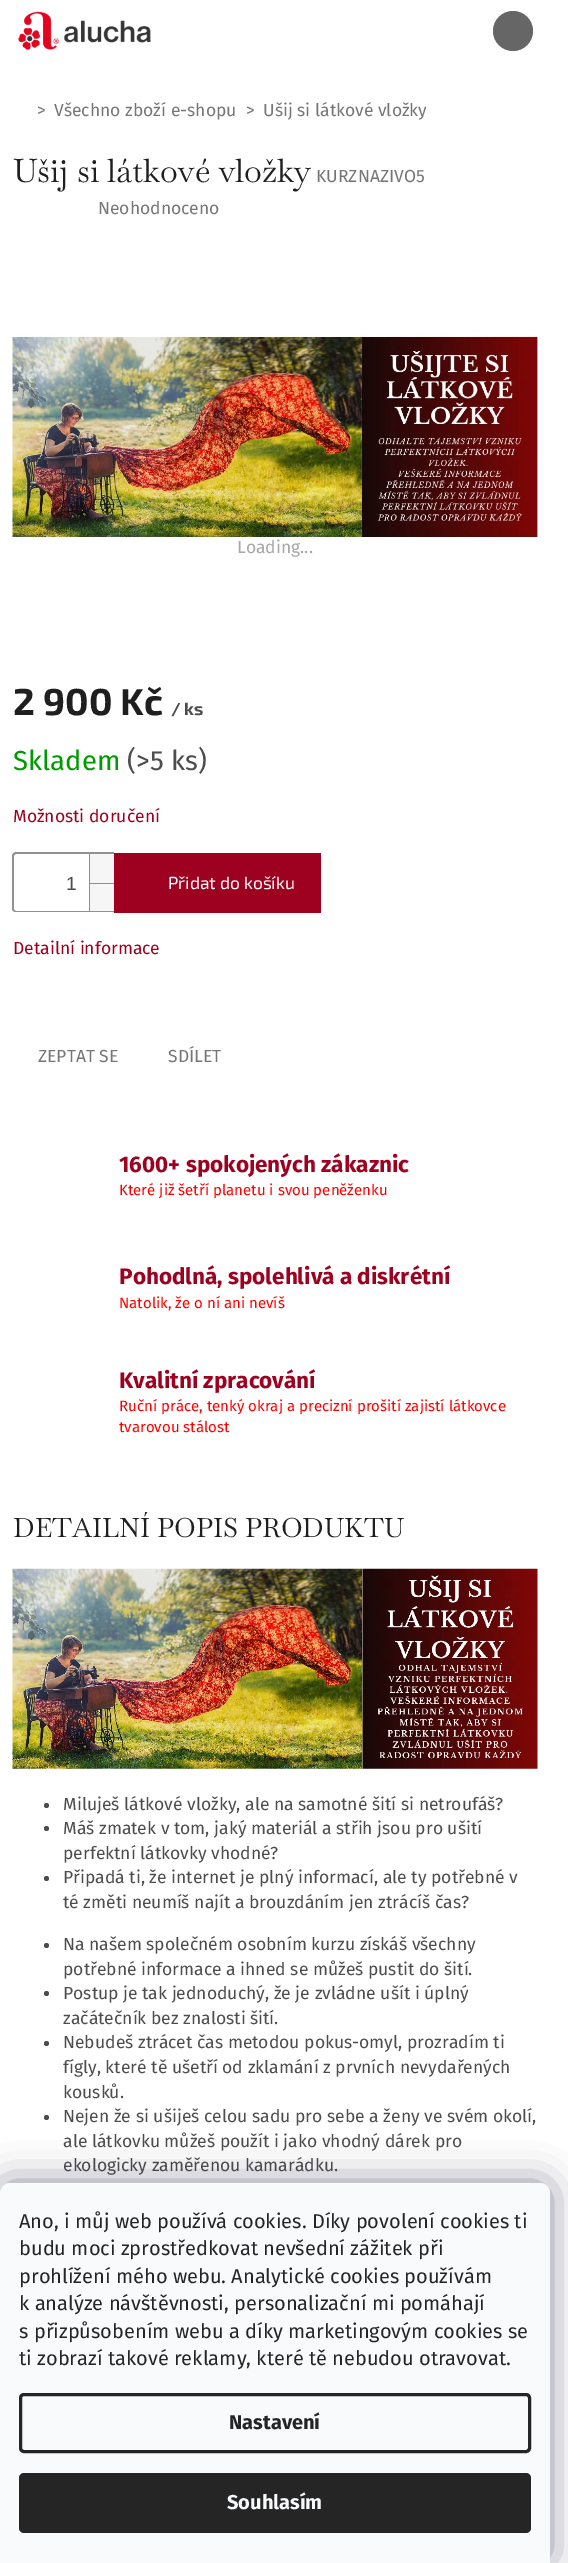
%!PS-Adobe-3.0
%%BoundingBox: 0 0 568 2563
%%LanguageLevel: 3
%%Pages: 1
%%EndComments
%%BeginProlog
/setink { 3 { 255 div 3 1 roll } repeat setrgbcolor } def
/usefont { [ exch dup neg 0 0 3 -1 roll 0 0 ] selectfont } def
/drawtext { setink usefont moveto show } def
/fillbox { setink rectfill } def
/setalpha { dup .setfillconstantalpha .setstrokeconstantalpha } def
/disc { newpath 0 360 arc closepath } def
/rrect { 5 dict begin { /r /h /w /y /x } { exch def } forall
  x r add y moveto x w add y 2 copy h add r arct x w add y h add x 1 index r arct
  x y h add x y r arct x y 2 copy exch w add exch r arct closepath end } def
/softshadow { 12 dict begin { /a /b /q /h /w /y /x } { exch def } forall gsave /was 0 def
  9 -2 -9 { dup b mul 4 div /e exch def 1 sub .425 mul 2.718 exch exp 1 add a .99 .min exch div /now exch def
    1 1 now sub 1 was sub div sub setalpha /was now def
    w h .min e 2 mul add 0 gt { x e sub y e sub w e 2 mul add h e 2 mul add
      q e add b .6 mul add w h .min 2 div e add .min 0 .max rrect fill } if } for grestore end } def
/drawimage { 5 dict begin { /h /w /y /x /name } { exch def } forall
  gsave x y translate w h scale
  w h 8 [w 0 0 h 0 0] name (r) file false 3 colorimage grestore end } def
%%EndProlog
%%BeginSetup
<< /PageSize [568 2563] /PageUsesTransparency true >> setpagedevice
%%EndSetup
%%Page: 1 1
0 .pushpdf14devicefilter
0 2563 translate 1 -1 scale
4 setmiterlimit
0 0 568 2563 255 255 255 fillbox
(assets/img1.rgb) 18 11 133 39 drawimage
102 102 102 setink
513 31 20 disc fill
(>) 37 116 /FiraSans-Regular 17.5 118 118 118 drawtext
(Všechno zboží e-shopu) 54 116 /FiraSans-Regular 17.5 118 118 118 drawtext
(>) 246 116 /FiraSans-Regular 17.5 118 118 118 drawtext
(Ušij si látkové vložky) 263 116 /FiraSans-Regular 17.5 118 118 118 drawtext
(Ušij si látkové vložky) 13 182 /Baskervville-Regular 32.5 31 31 31 drawtext
(KURZNAZIVO5) 316 182 /FiraSans-Regular 17.5 118 118 118 drawtext
(Neohodnoceno) 98 214 /FiraSans-Regular 17.5 118 118 118 drawtext
(assets/img2.rgb) 12 330 526 211 drawimage
(Loading...) 237 553 /FiraSans-Regular 17.5 166 166 166 drawtext
(2 900 Kč) 13 715 /Exo2-Bold 37.5 31 31 31 drawtext
(/ ks) 171 715 /Exo2-Bold 17.5 77 77 77 drawtext
(Skladem) 13 770 /FiraSans-Regular 27.5 0 153 1 drawtext
(\(>5 ks\)) 127 770 /FiraSans-Regular 27.5 77 77 77 drawtext
(Možnosti doručení) 13 822 /FiraSans-Regular 17.5 158 1 32 drawtext
145 145 145 setink
16 852 moveto 114 852 lineto 114 912 lineto 16 912 lineto 14 912 12 911 12 909 curveto 12 856 lineto 12 854 14 852 16 852 curveto closepath 16 854 moveto 114 854 lineto 114 911 lineto 16 911 lineto 15 911 14 910 14 909 curveto 14 856 lineto 14 855 15 854 16 854 curveto closepath eofill
(1) 66 890 /LiberationSans-Regular 19 77 77 77 drawtext
90 854 24 29 246 246 246 fillbox
89 854 1 29 145 145 145 fillbox
90 884 24 27 246 246 246 fillbox
89 883 25 1 145 145 145 fillbox
89 883 1 28 145 145 145 fillbox
114 853 207 60 158 1 32 fillbox
(Přidat do košíku) 168 889 /Exo2-Regular 17.5 255 255 255 drawtext
(Detailní informace) 13 954 /FiraSans-Regular 17.5 158 1 32 drawtext
(ZEPTAT SE) 38 1062 /FiraSans-Regular 17.5 118 118 118 drawtext
(SDÍLET) 168 1062 /FiraSans-Regular 17.5 118 118 118 drawtext
(1600+ spokojených zákaznic) 119 1172 /FiraSans-Bold 22.5 158 1 32 drawtext
(Které již šetří planetu i svou peněženku) 119 1195 /FiraSans-Regular 15 255 0 0 drawtext
(Pohodlná, spolehlivá a diskrétní) 119 1284 /FiraSans-Bold 22.5 158 1 32 drawtext
(Natolik, že o ní ani nevíš) 119 1308 /FiraSans-Regular 15 255 0 0 drawtext
(Kvalitní zpracování) 119 1388 /FiraSans-Bold 22.5 158 1 32 drawtext
(Ruční práce, tenký okraj a precizní prošití zajistí látkovce) 119 1411 /FiraSans-Regular 15 255 0 0 drawtext
(tvarovou stálost) 119 1432 /FiraSans-Regular 15 255 0 0 drawtext
(DETAILNÍ POPIS PRODUKTU) 13 1537 /Baskervville-Regular 26.7 31 31 31 drawtext
(assets/img3.rgb) 12 1568 526 201 drawimage
77 77 77 setink
46.5 1805.5 2.5 disc fill
(Miluješ látkové vložky, ale na samotné šití si netroufáš?) 63 1810 /FiraSans-Regular 17.5 77 77 77 drawtext
46.5 1828.5 2.5 disc fill
(Máš zmatek v tom, jaký materiál a střih jsou pro ušití) 63 1834 /FiraSans-Regular 17.5 77 77 77 drawtext
(perfektní látkovky vhodné?) 63 1859 /FiraSans-Regular 17.5 77 77 77 drawtext
46.5 1878.5 2.5 disc fill
(Připadá ti, že internet je plný informací, ale ty potřebné v) 63 1883 /FiraSans-Regular 17.5 77 77 77 drawtext
(té změti neumíš najít a brouzdáním jen ztrácíš čas?) 63 1908 /FiraSans-Regular 17.5 77 77 77 drawtext
46.5 1945.5 2.5 disc fill
(Na našem společném osobním kurzu získáš všechny) 63 1950 /FiraSans-Regular 17.5 77 77 77 drawtext
(potřebné informace a ihned se můžeš pustit do šití.) 63 1975 /FiraSans-Regular 17.5 77 77 77 drawtext
46.5 1993.5 2.5 disc fill
(Postup je tak jednoduchý, že je zvládne ušít i úplný) 63 1999 /FiraSans-Regular 17.5 77 77 77 drawtext
(začátečník bez znalosti šití.) 63 2024 /FiraSans-Regular 17.5 77 77 77 drawtext
46.5 2043.5 2.5 disc fill
(Nebudeš ztrácet čas metodou pokus-omyl, prozradím ti) 63 2048 /FiraSans-Regular 17.5 77 77 77 drawtext
(fígly, které tě ušetří od zklamání z prvních nevydařených) 63 2073 /FiraSans-Regular 17.5 77 77 77 drawtext
(kousků.) 63 2098 /FiraSans-Regular 17.5 77 77 77 drawtext
46.5 2117.5 2.5 disc fill
(Nejen že si ušiješ celou sadu pro sebe a ženy ve svém okolí,) 63 2122 /FiraSans-Regular 17.5 77 77 77 drawtext
(ale látkovku můžeš použít i jako vhodný dárek pro) 63 2147 /FiraSans-Regular 17.5 77 77 77 drawtext
(ekologicky zaměřenou kamarádku.) 63 2171 /FiraSans-Regular 17.5 77 77 77 drawtext
27 25 57 setink
0 2183 550 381 10 19 0.5 softshadow
248 250 251 setink
10 2183 moveto 540 2183 lineto 545.5 2183 550 2187.5 550 2193 curveto 550 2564 lineto 0 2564 lineto 0 2193 lineto 0 2187.5 4.5 2183 10 2183 curveto closepath fill
(Ano, i můj web používá cookies. Díky povolení cookies ti) 19 2228 /FiraSans-Regular 20 37 37 37 drawtext
(budu moci zprostředkovat nevšední zážitek při) 19 2255 /FiraSans-Regular 20 37 37 37 drawtext
(prohlížení mého webu. Analytické cookies používám) 19 2283 /FiraSans-Regular 20 37 37 37 drawtext
(k analýze návštěvnosti, personalizační mi pomáhají) 19 2310 /FiraSans-Regular 20 37 37 37 drawtext
(s přizpůsobením webu a díky marketingovým cookies se) 19 2338 /FiraSans-Regular 20 37 37 37 drawtext
(ti zobrazí takové reklamy, které tě nebudou otravovat.) 19 2365 /FiraSans-Regular 20 37 37 37 drawtext
3 setlinewidth
20.5 2394.5 509 57 3.5 rrect stroke
(Nastavení) 229 2429 /FiraSans-Bold 20 37 37 37 drawtext
19 2473 512 60 5 rrect fill
(Souhlasím) 227 2509 /FiraSans-Bold 20 248 250 251 drawtext
.poppdf14devicefilter showpage
%%EOF
